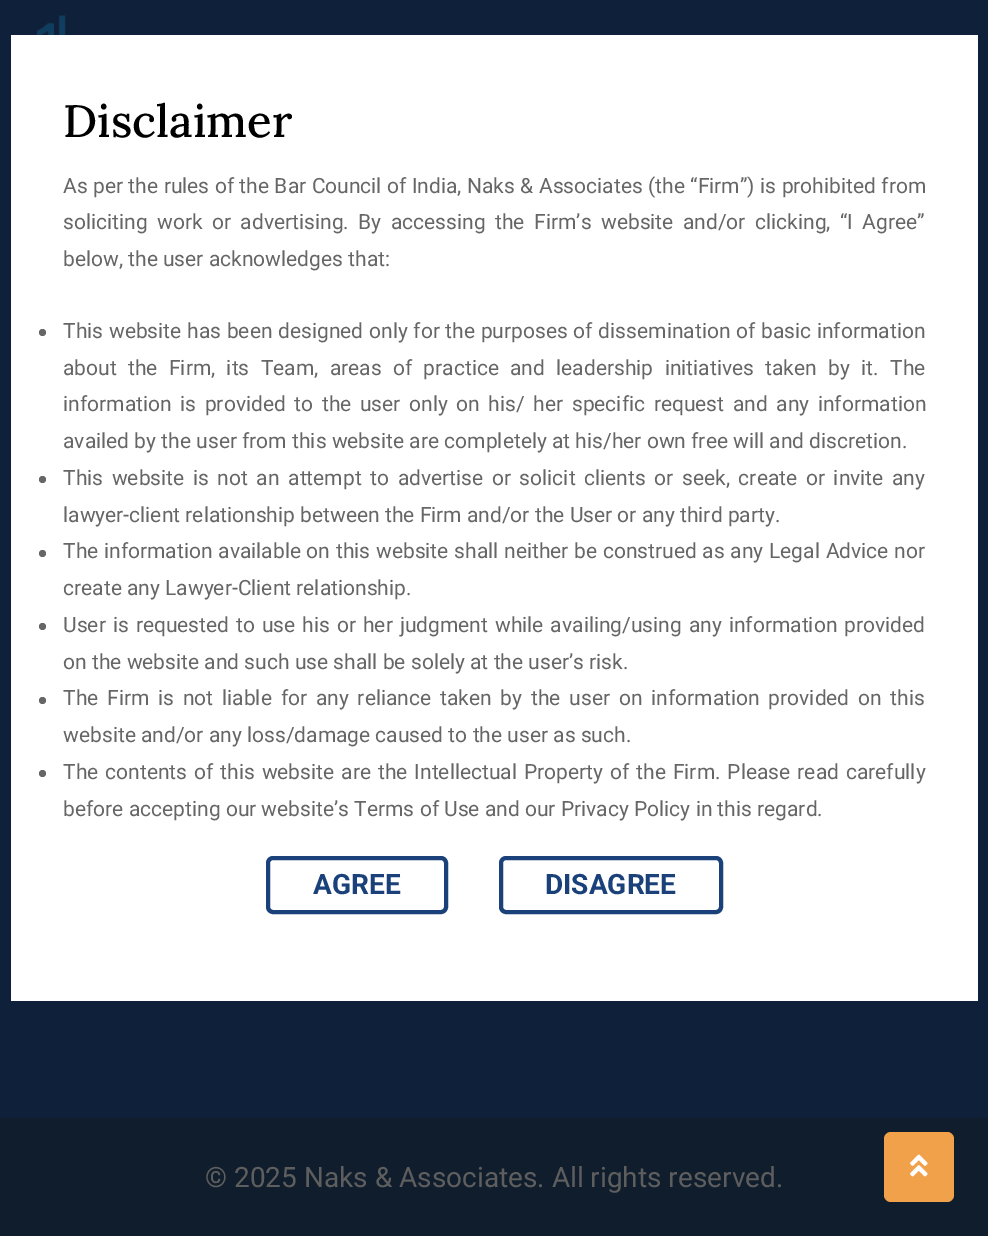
%!PS-Adobe-3.0
%%BoundingBox: 0 0 988 1236
%%LanguageLevel: 3
%%Pages: 1
%%EndComments
%%BeginProlog
/setink { 3 { 255 div 3 1 roll } repeat setrgbcolor } def
/usefont { [ exch dup neg 0 0 3 -1 roll 0 0 ] selectfont } def
/drawtext { setink usefont moveto show } def
/fillbox { setink rectfill } def
/disc { newpath 0 360 arc closepath } def
/rrect { 5 dict begin { /r /h /w /y /x } { exch def } forall
  x r add y moveto x w add y 2 copy h add r arct x w add y h add x 1 index r arct
  x y h add x y r arct x y 2 copy exch w add exch r arct closepath end } def
/drawimage { 5 dict begin { /h /w /y /x /name } { exch def } forall
  gsave x y translate w h scale
  w h 8 [w 0 0 h 0 0] name (r) file false 3 colorimage grestore end } def
%%EndProlog
%%BeginSetup
<< /PageSize [988 1236] >> setpagedevice
%%EndSetup
%%Page: 1 1
0 1236 translate 1 -1 scale
4 setmiterlimit
0 0 988 1236 16 29 44 fillbox
0 0 988 1118 15 33 58 fillbox
(assets/img1.rgb) 36 15 30 20 drawimage
11 35 967 966 255 255 255 fillbox
(Disclaimer) 63 137 /Lora-Medium 45.5 0 0 0 drawtext
/Roboto-Regular 21 usefont
102 102 102 setink
63 193 moveto 0.25 0 32 (As per the rules of the Bar Council of India, Naks & Associates \(the “Firm”\) is prohibited from) widthshow
63 229 moveto 4.25 0 32 (soliciting work or advertising. By accessing the Firm’s website and/or clicking, “I Agree”) widthshow
(below, the user acknowledges that:) 63 266 /Roboto-Regular 21 102 102 102 drawtext
42.5 332.5 3.5 disc fill
63 338 moveto 0.5 0 32 (This website has been designed only for the purposes of dissemination of basic information) widthshow
63 375 moveto 6.1 0 32 (about the Firm, its Team, areas of practice and leadership initiatives taken by it. The) widthshow
63 411 moveto 3.4 0 32 (information is provided to the user only on his/ her specific request and any information) widthshow
(availed by the user from this website are completely at his/her own free will and discretion.) 63 448 /Roboto-Regular 21 102 102 102 drawtext
42.5 479.5 3.5 disc fill
63 485 moveto 3.4 0 32 (This website is not an attempt to advertise or solicit clients or seek, create or invite any) widthshow
(lawyer-client relationship between the Firm and/or the User or any third party.) 63 522 /Roboto-Regular 21 102 102 102 drawtext
42.5 553.5 3.5 disc fill
63 558 moveto 0.5 0 32 (The information available on this website shall neither be construed as any Legal Advice nor) widthshow
(create any Lawyer-Client relationship.) 63 595 /Roboto-Regular 21 102 102 102 drawtext
42.5 626.5 3.5 disc fill
63 632 moveto 1.75 0 32 (User is requested to use his or her judgment while availing/using any information provided) widthshow
(on the website and such use shall be solely at the user’s risk.) 63 669 /Roboto-Regular 21 102 102 102 drawtext
42.5 700.5 3.5 disc fill
63 705 moveto 3.6 0 32 (The Firm is not liable for any reliance taken by the user on information provided on this) widthshow
(website and/or any loss/damage caused to the user as such.) 63 742 /Roboto-Regular 21 102 102 102 drawtext
42.5 773.5 3.5 disc fill
63 779 moveto 1.75 0 32 (The contents of this website are the Intellectual Property of the Firm. Please read carefully) widthshow
(before accepting our website’s Terms of Use and our Privacy Policy in this regard.) 63 816 /Roboto-Regular 21 102 102 102 drawtext
26 65 121 setink
4 setlinewidth
268 858 178 54 5 rrect stroke
(AGREE) 313 894 /Roboto-Bold 28 26 65 121 drawtext
501 858 220 54 5 rrect stroke
(DISAGREE) 545 894 /Roboto-Bold 28 26 65 121 drawtext
(© 2025 Naks & Associates. All rights reserved.) 205 1187 /Roboto-Regular 28 94 94 94 drawtext
242 161 75 setink
884 1132 70 70 7 rrect fill
(assets/img2.rgb) 910 1154 18 23 drawimage
showpage
%%EOF
